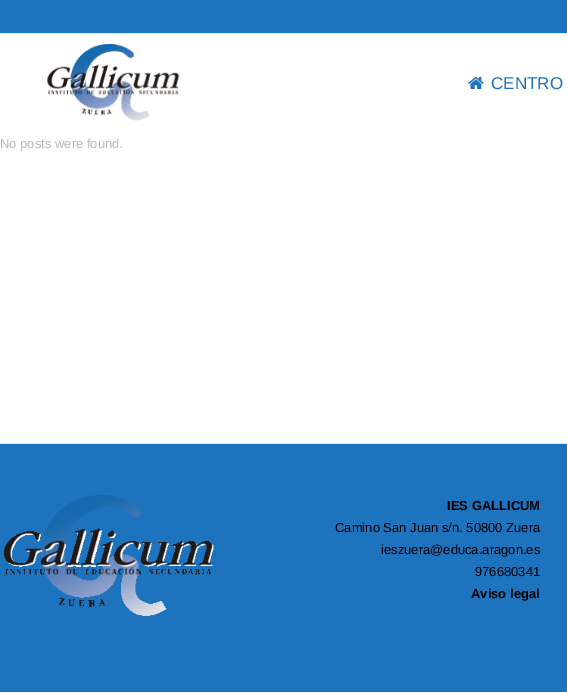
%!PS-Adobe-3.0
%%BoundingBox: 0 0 567 693
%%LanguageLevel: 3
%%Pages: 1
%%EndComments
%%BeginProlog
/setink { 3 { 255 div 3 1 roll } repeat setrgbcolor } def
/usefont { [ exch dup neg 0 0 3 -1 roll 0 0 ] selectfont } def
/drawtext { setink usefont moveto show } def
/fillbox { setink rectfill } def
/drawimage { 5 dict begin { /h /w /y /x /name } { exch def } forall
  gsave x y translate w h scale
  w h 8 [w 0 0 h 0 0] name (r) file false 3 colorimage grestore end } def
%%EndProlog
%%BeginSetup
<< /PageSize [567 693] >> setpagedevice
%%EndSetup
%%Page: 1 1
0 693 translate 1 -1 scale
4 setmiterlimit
0 0 567 693 255 255 255 fillbox
0 0 567 33 30 115 190 fillbox
0 33 567 1 232 232 232 fillbox
(assets/img1.rgb) 47 44 133 77 drawimage
(assets/img2.rgb) 468 76 16 13 drawimage
(CENTRO) 491 89 /LiberationSans-Regular 17 30 115 190 drawtext
(No posts were found.) 0 148 /LiberationSans-Regular 13 184 184 184 drawtext
0 444 567 248 30 115 190 fillbox
0 443 567 1 232 232 232 fillbox
(assets/img3.rgb) 3 495 211 121 drawimage
(IES GALLICUM) 447 510 /LiberationSans-Bold 13 0 0 0 drawtext
(Camino San Juan s/n. 50800 Zuera) 335 532 /LiberationSans-Regular 13 0 0 0 drawtext
(ieszuera@educa.aragon.es) 381 554 /LiberationSans-Regular 13 0 0 0 drawtext
(976680341) 475 576 /LiberationSans-Regular 13 0 0 0 drawtext
(Aviso legal) 471 598 /LiberationSans-Bold 13 0 0 0 drawtext
showpage
%%EOF
